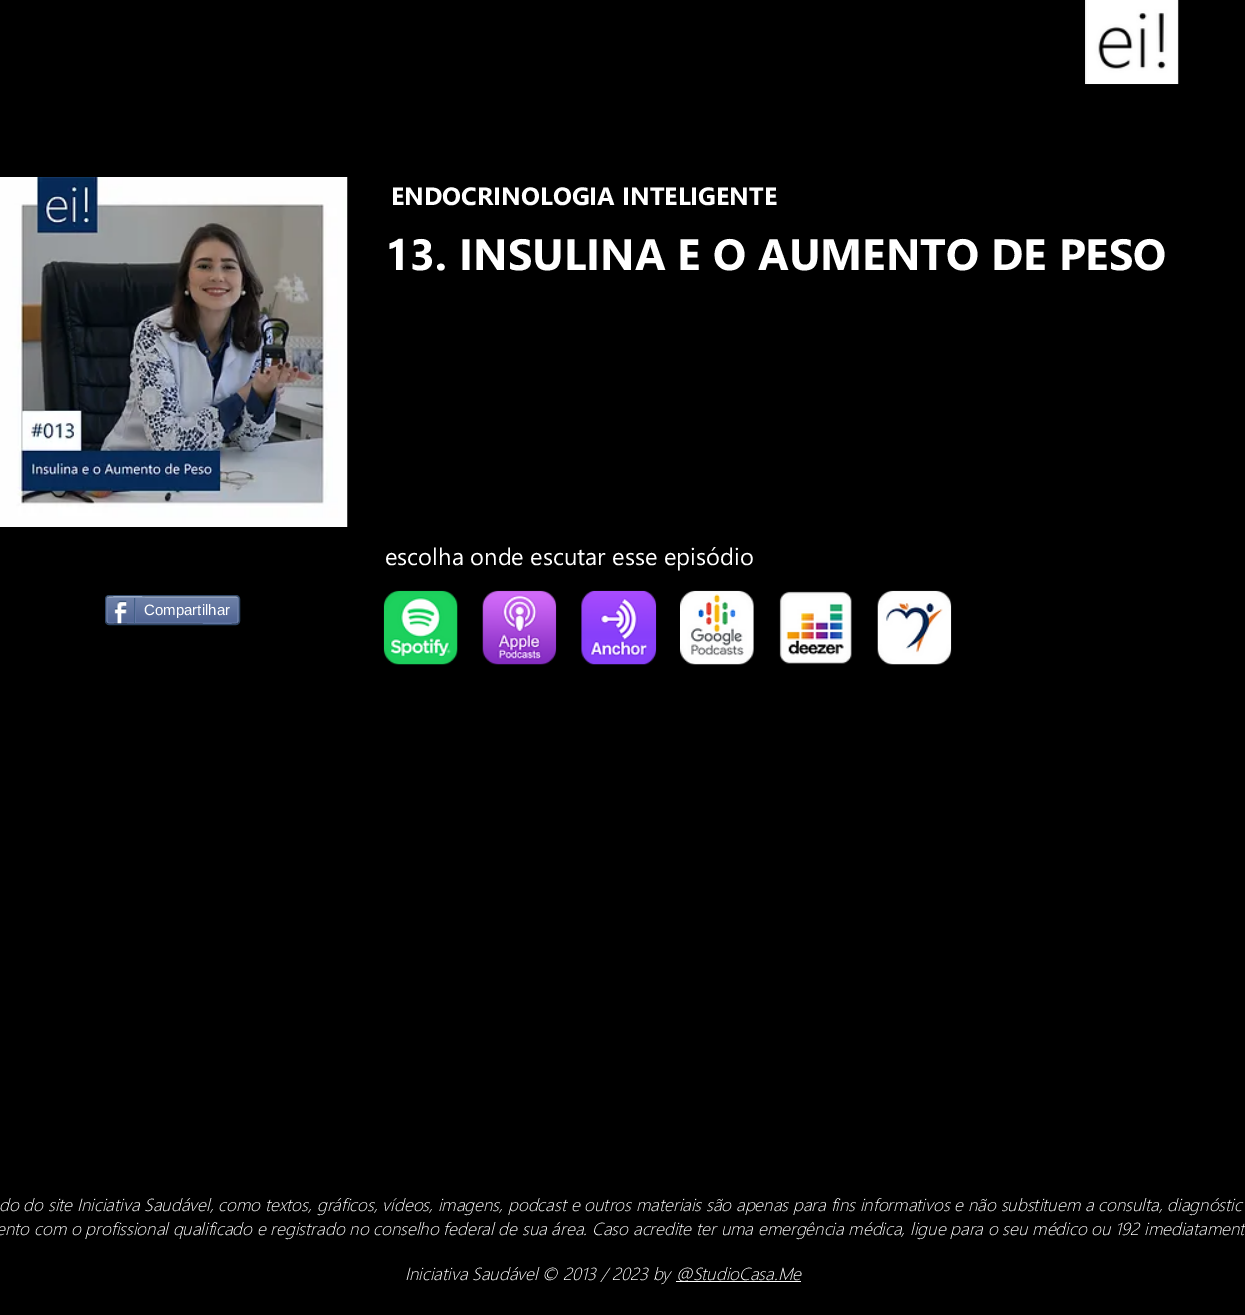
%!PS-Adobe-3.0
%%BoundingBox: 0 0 1245 1315
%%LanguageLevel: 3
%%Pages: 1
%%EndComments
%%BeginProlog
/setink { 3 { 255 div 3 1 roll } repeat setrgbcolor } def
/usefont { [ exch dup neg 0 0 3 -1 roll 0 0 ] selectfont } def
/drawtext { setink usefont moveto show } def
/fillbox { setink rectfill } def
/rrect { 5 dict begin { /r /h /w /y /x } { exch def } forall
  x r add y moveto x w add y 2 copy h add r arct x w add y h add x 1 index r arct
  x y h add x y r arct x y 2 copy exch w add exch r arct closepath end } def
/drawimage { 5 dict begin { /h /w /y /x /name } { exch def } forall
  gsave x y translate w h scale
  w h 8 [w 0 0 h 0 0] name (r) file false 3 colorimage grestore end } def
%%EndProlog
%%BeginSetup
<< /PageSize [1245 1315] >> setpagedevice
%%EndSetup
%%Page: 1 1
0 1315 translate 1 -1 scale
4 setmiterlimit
0 0 1245 1315 0 0 0 fillbox
(assets/img1.rgb) 1085 0 94 85 drawimage
(assets/img2.rgb) 0 177 348 350 drawimage
(ENDOCRINOLOGIA INTELIGENTE) 391 205 /SegoeUI-Bold 25 255 255 255 drawtext
(13. INSULINA E O AUMENTO DE PESO) 385 270 /SegoeUI-Bold 43.75 255 255 255 drawtext
(escolha onde escutar esse episódio) 385 565 /SegoeUI-Regular 23.75 255 255 255 drawtext
45 69 101 setink
105.5 595.5 134 29 3.5 rrect stroke
(assets/img3.rgb) 106 597 133 27 drawimage
154 171 198 setink
1.2 setlinewidth
107.5 597.5 moveto 109 596 148.5 597 151 597 curveto 236 597 lineto 237.5 597.5 lineto stroke
111 131 173 setink
237.5 597.5 moveto 238 599 lineto 238 621 lineto 237.5 622.5 lineto stroke
97 118 163 setink
237.5 622.5 moveto 236 624 196.5 623 194 623 curveto 109 623 lineto 107.5 622.5 lineto stroke
111 131 173 setink
107.5 622.5 moveto 107 621 lineto 107 599 lineto 107.5 597.5 lineto stroke
(assets/img4.rgb) 114 600 13 24 drawimage
134 598 1 26 66 94 133 fillbox
(Compartilhar) 144 615 /LiberationSans-Regular 15 255 255 255 drawtext
135 598 1 25 97 118 163 fillbox
(assets/img5.rgb) 383 590 75 75 drawimage
(assets/img6.rgb) 482 590 75 75 drawimage
(assets/img7.rgb) 581 590 76 75 drawimage
(assets/img8.rgb) 680 590 74 75 drawimage
(assets/img9.rgb) 779 591 73 73 drawimage
(assets/img10.rgb) 877 590 75 75 drawimage
(do do site Iniciativa Saudável, como textos, gráficos, vídeos, imagens, podcast e outros materiais são apenas para fins informativos e não substituem a consulta, diagnóstic) -1 1211 /SegoeUI-LightItalic 17.5 255 255 255 drawtext
(ento com o profissional qualificado e registrado no conselho federal de sua área. Caso acredite ter uma emergência médica, ligue para o seu médico ou 192 imediatament) -4 1235 /SegoeUI-LightItalic 17.5 255 255 255 drawtext
(Iniciativa Saudável © 2013 / 2023 by) 405 1280 /SegoeUI-LightItalic 17.5 255 255 255 drawtext
676 1281 125 1 255 255 255 fillbox
(@StudioCasa.Me) 676 1280 /SegoeUI-LightItalic 17.5 255 255 255 drawtext
showpage
%%EOF
